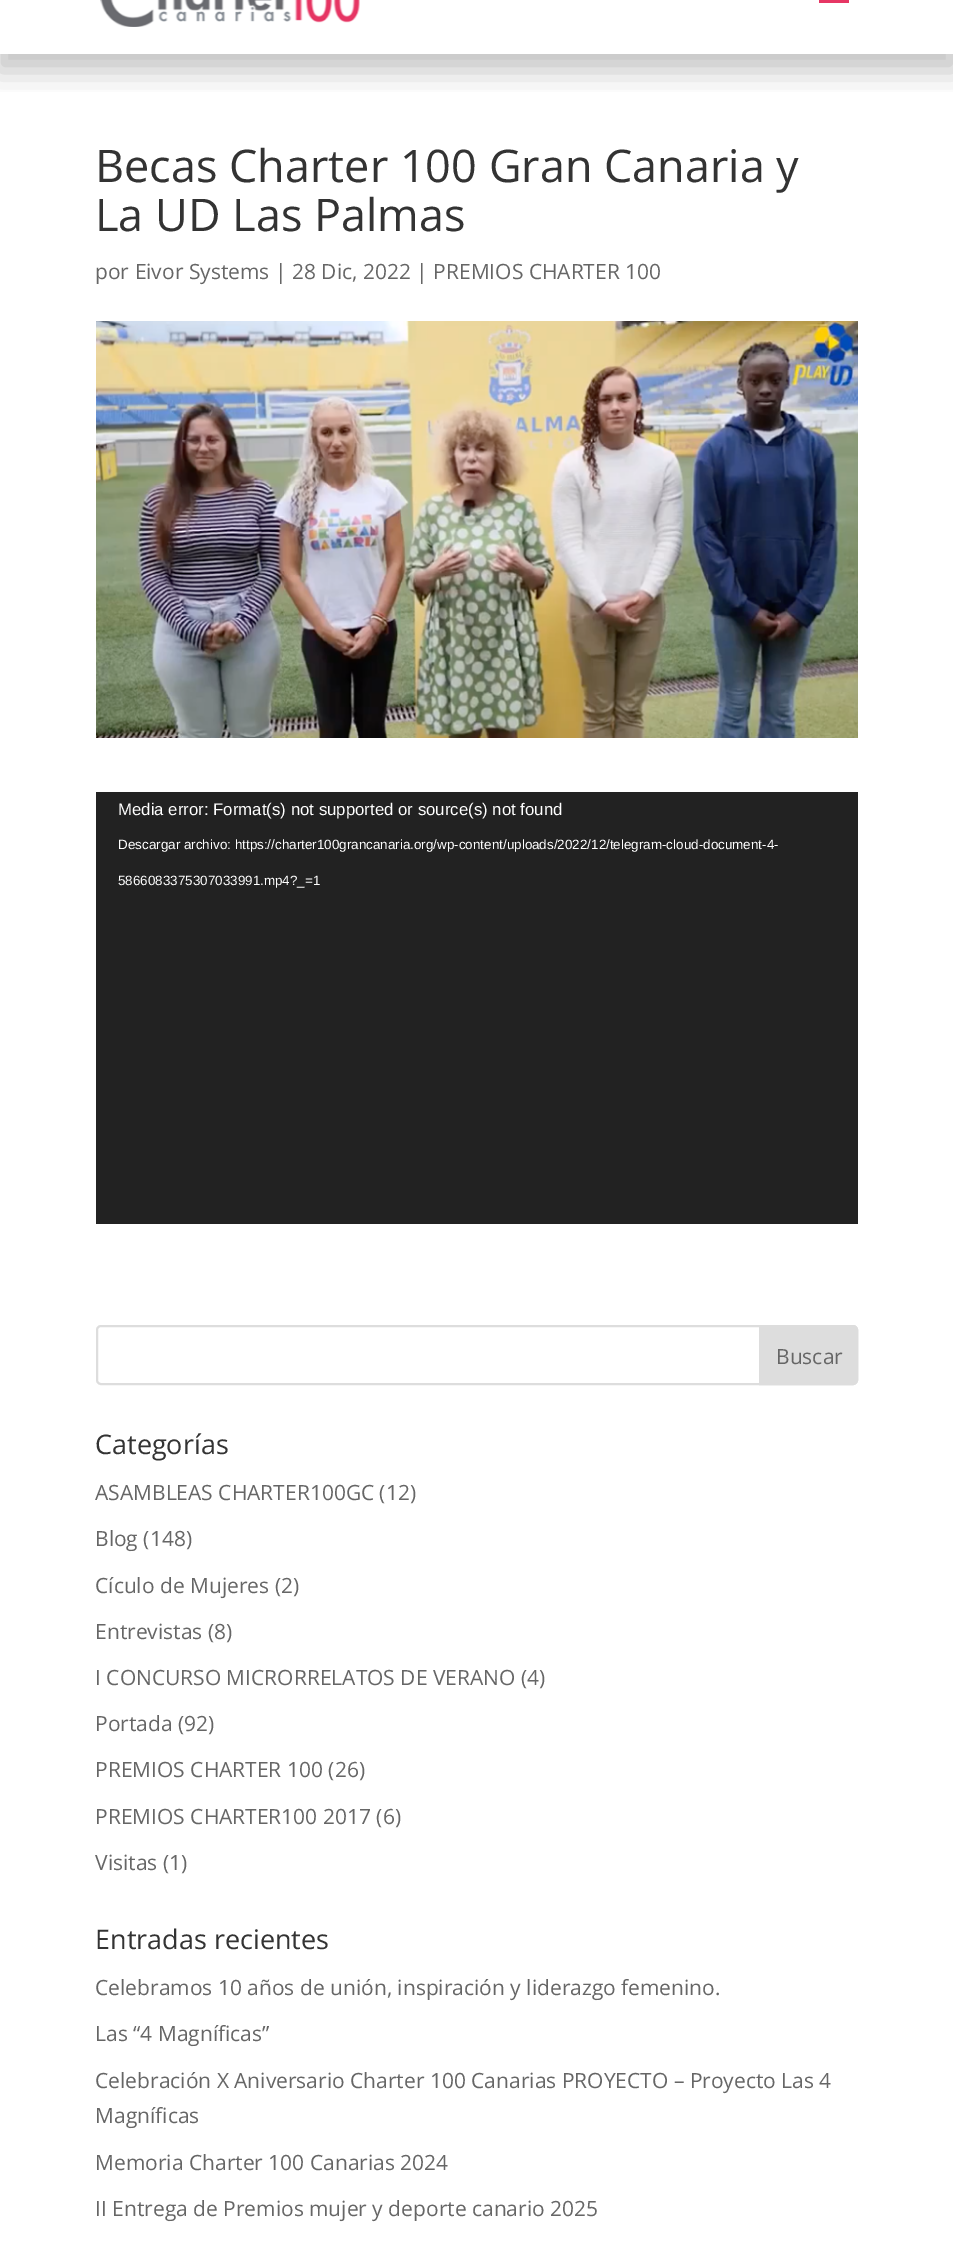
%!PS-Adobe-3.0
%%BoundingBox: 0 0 953 2259
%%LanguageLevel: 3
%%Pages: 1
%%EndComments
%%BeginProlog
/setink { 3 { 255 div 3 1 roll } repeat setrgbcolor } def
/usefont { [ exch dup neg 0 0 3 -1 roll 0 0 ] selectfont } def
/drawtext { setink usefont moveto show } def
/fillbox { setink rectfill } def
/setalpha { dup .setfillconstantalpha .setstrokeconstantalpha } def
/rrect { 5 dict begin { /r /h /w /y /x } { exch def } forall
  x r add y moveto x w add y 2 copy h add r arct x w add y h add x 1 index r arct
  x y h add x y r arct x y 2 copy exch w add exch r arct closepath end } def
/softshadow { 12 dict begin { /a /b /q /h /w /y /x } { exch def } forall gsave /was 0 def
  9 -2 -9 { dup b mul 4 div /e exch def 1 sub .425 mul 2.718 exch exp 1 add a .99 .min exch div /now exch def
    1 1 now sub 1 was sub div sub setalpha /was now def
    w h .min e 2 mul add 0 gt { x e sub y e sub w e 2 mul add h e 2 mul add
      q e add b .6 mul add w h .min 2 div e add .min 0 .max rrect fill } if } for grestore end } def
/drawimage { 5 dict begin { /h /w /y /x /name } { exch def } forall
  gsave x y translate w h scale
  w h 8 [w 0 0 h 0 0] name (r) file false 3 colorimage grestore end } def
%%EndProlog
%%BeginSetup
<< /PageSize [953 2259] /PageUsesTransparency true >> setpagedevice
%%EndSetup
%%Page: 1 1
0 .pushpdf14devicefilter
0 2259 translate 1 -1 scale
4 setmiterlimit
0 0 953 2259 255 255 255 fillbox
gsave
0 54 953 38 rectclip
0 0 0 setink
-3 -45 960 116 0 15 0.24 softshadow
grestore
(assets/img1.rgb) 100 0 260 27 drawimage
819 0 30 3 230 54 100 fillbox
(Becas Charter 100 Gran Canaria y) 95 182 /OpenSans-Regular 45 51 51 51 drawtext
(La UD Las Palmas) 95 231 /OpenSans-Regular 45 51 51 51 drawtext
(por Eivor Systems | 28 Dic, 2022 | PREMIOS CHARTER 100) 95 279 /OpenSans-Regular 21 102 102 102 drawtext
(assets/img2.rgb) 96 321 762 417 drawimage
96 792 762 432 34 34 34 fillbox
(Media error: Format\(s\) not supported or source\(s\) not found) 118 815 /LiberationSans-Regular 16.8 255 255 255 drawtext
(Descargar archivo: https://charter100grancanaria.org/wp-content/uploads/2022/12/telegram-cloud-document-4-) 118 849 /LiberationSans-Regular 13.45 255 255 255 drawtext
(5866083375307033991.mp4?_=1) 118 885 /LiberationSans-Regular 13.45 255 255 255 drawtext
221 221 221 setink
2 setlinewidth
97 1326 760 58 4 rrect stroke
760 1326 moveto 853 1326 lineto 855 1326 857 1328 857 1330 curveto 857 1380 lineto 857 1382 855 1384 853 1384 curveto 760 1384 lineto closepath gsave fill grestore
stroke
(Buscar) 776 1364 /OpenSans-Regular 21 102 102 102 drawtext
(Categorías) 95 1454 /OpenSans-Regular 27 51 51 51 drawtext
(ASAMBLEAS CHARTER100GC \(12\)) 95 1500 /OpenSans-Regular 21 102 102 102 drawtext
(Blog \(148\)) 95 1546 /OpenSans-Regular 21 102 102 102 drawtext
(Cículo de Mujeres \(2\)) 95 1593 /OpenSans-Regular 21 102 102 102 drawtext
(Entrevistas \(8\)) 95 1639 /OpenSans-Regular 21 102 102 102 drawtext
(I CONCURSO MICRORRELATOS DE VERANO \(4\)) 95 1685 /OpenSans-Regular 21 102 102 102 drawtext
(Portada \(92\)) 95 1731 /OpenSans-Regular 21 102 102 102 drawtext
(PREMIOS CHARTER 100 \(26\)) 95 1777 /OpenSans-Regular 21 102 102 102 drawtext
(PREMIOS CHARTER100 2017 \(6\)) 95 1824 /OpenSans-Regular 21 102 102 102 drawtext
(Visitas \(1\)) 95 1870 /OpenSans-Regular 21 102 102 102 drawtext
(Entradas recientes) 95 1949 /OpenSans-Regular 27 51 51 51 drawtext
(Celebramos 10 años de unión, inspiración y liderazgo femenino.) 95 1995 /OpenSans-Regular 21 102 102 102 drawtext
(Las “4 Magníficas”) 95 2041 /OpenSans-Regular 21 102 102 102 drawtext
(Celebración X Aniversario Charter 100 Canarias PROYECTO – Proyecto Las 4) 95 2088 /OpenSans-Regular 21 102 102 102 drawtext
(Magníficas) 95 2123 /OpenSans-Regular 21 102 102 102 drawtext
(Memoria Charter 100 Canarias 2024) 95 2170 /OpenSans-Regular 21 102 102 102 drawtext
(II Entrega de Premios mujer y deporte canario 2025) 95 2216 /OpenSans-Regular 21 102 102 102 drawtext
.poppdf14devicefilter showpage
%%EOF
